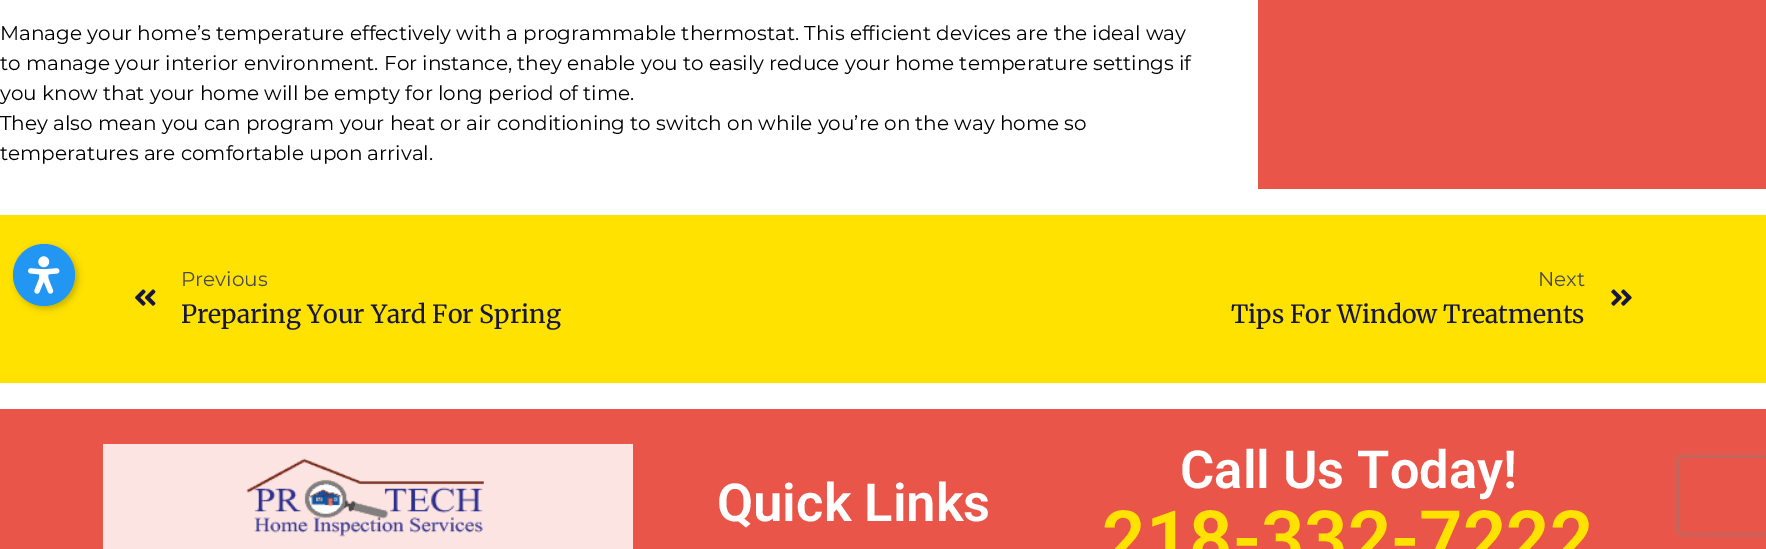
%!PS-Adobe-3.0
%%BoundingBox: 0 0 1766 549
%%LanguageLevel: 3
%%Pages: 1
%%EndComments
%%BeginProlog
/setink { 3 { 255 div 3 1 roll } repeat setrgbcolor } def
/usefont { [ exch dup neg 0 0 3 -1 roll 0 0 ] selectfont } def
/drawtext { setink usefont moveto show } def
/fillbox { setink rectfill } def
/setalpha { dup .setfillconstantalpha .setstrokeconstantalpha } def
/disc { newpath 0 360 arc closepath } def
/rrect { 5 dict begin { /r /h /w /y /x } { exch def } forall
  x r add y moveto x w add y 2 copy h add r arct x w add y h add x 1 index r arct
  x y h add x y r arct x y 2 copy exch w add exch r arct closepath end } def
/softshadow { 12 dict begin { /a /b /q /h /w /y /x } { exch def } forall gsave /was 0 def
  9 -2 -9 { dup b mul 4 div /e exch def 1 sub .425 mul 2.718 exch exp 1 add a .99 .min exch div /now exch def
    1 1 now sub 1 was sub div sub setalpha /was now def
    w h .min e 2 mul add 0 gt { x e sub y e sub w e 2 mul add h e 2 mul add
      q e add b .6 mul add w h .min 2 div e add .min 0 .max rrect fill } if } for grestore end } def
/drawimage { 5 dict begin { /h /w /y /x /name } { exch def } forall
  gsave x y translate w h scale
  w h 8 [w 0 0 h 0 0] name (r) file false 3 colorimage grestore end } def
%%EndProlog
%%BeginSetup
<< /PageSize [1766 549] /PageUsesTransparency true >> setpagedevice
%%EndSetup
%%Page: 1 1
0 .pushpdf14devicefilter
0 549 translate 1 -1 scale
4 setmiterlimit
0 0 1766 549 255 255 255 fillbox
(Manage your home’s temperature effectively with a programmable thermostat. This efficient devices are the ideal way) 0 40 /Montserrat-Regular 20 0 0 0 drawtext
(to manage your interior environment. For instance, they enable you to easily reduce your home temperature settings if) 0 70 /Montserrat-Regular 20 0 0 0 drawtext
(you know that your home will be empty for long period of time.) 0 100 /Montserrat-Regular 20 0 0 0 drawtext
(They also mean you can program your heat or air conditioning to switch on while you’re on the way home so) 0 130 /Montserrat-Regular 20 0 0 0 drawtext
(temperatures are comfortable upon arrival.) 0 160 /Montserrat-Regular 20 0 0 0 drawtext
1258 0 508 189 233 86 73 fillbox
0 215 1766 168 255 226 0 fillbox
(assets/img1.rgb) 135 289 21 17 drawimage
(Previous) 181 286 /Montserrat-Regular 20 74 74 74 drawtext
(Preparing Your Yard For Spring) 181 323 /Merriweather-Regular 25 22 22 63 drawtext
883 265 1 68 210 209 216 fillbox
(Next) 1538 286 /Montserrat-Regular 20 74 74 74 drawtext
(Tips For Window Treatments) 1231 323 /Merriweather-Regular 25 22 22 63 drawtext
(assets/img2.rgb) 1611 289 21 17 drawimage
0 0 0 setink
15 246 63 63 31.5 3 0.2 softshadow
33 150 243 setink
44 275 31 disc fill
(assets/img3.rgb) 28 256 32 38 drawimage
0 409 1766 140 233 86 73 fillbox
103 444 530 105 251 228 226 fillbox
(assets/img4.rgb) 246 458 238 79 drawimage
(Quick Links) 717 521 /Roboto-SemiBold 52.5 255 255 255 drawtext
(Call Us Today!) 1180 488 /Roboto-SemiBold 52.5 255 255 255 drawtext
(218-332-7222) 1102 565 /Roboto-SemiBold 76.25 255 226 0 drawtext
gsave
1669 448 moveto 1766 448 lineto 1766 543 lineto 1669 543 lineto closepath 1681.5 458 moveto 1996.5 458 lineto 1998 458 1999 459 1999 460.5 curveto 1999 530.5 lineto 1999 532 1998 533 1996.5 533 curveto 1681.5 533 lineto 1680 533 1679 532 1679 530.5 curveto 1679 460.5 lineto 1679 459 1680 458 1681.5 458 curveto closepath eoclip newpath
128 128 128 setink
1679 458 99 75 2.5 3 1 softshadow
grestore
.poppdf14devicefilter showpage
%%EOF
